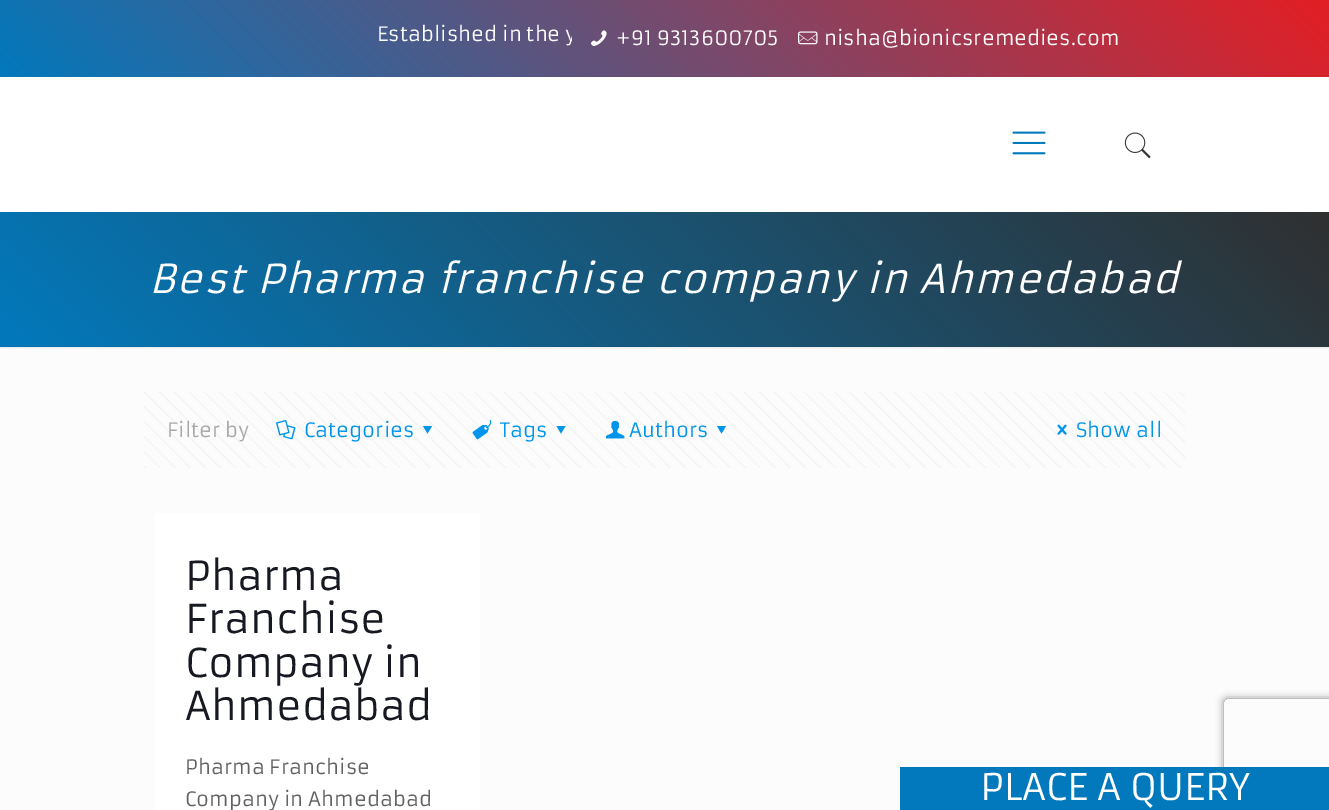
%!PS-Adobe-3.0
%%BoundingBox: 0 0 1329 810
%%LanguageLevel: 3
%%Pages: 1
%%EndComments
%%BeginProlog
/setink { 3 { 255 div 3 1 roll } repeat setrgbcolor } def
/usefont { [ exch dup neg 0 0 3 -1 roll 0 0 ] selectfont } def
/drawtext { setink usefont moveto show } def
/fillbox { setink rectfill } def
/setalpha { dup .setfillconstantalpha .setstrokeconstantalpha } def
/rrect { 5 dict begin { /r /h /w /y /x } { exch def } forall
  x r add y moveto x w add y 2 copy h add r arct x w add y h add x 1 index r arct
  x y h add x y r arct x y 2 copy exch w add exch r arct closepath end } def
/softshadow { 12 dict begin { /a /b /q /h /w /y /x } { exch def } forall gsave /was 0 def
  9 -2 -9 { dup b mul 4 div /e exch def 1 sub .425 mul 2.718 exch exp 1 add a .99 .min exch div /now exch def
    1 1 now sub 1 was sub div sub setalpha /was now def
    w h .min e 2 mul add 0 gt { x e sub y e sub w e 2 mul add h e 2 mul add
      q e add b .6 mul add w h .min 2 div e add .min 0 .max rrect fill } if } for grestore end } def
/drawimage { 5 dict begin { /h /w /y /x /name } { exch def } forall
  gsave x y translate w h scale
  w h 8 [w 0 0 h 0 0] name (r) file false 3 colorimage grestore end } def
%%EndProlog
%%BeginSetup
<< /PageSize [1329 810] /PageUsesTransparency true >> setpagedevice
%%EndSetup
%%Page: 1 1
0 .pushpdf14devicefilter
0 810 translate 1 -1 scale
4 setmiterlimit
0 0 1329 810 252 252 252 fillbox
gsave 0 0 moveto 1329 0 lineto 1329 77 lineto 0 77 lineto closepath clip newpath
<< /ShadingType 2 /ColorSpace /DeviceRGB /Coords [313 390 1016 -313] /Extend [true true] /Function << /FunctionType 2 /Domain [0 1] /C0 [0.008 0.475 0.737] /C1 [0.89 0.118 0.141] /N 1 >> >> shfill grestore
gsave
144 18 428 32 rectclip
(Established in the y) 377 41 /Armata-Regular 19.5 255 255 255 drawtext
grestore
(assets/img1.rgb) 591 30 16 16 drawimage
(+91 9313600705) 616 45 /Armata-Regular 19.5 255 255 255 drawtext
(assets/img2.rgb) 798 31 20 14 drawimage
(nisha@bionicsremedies.com) 824 45 /Armata-Regular 19.5 255 255 255 drawtext
0 77 1329 135 255 255 255 fillbox
(assets/img3.rgb) 1012 131 34 24 drawimage
(assets/img4.rgb) 1124 132 27 27 drawimage
gsave 0 212 moveto 1329 212 lineto 1329 347 lineto 0 347 lineto closepath clip newpath
<< /ShadingType 2 /ColorSpace /DeviceRGB /Coords [299 645 1031 -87] /Extend [true true] /Function << /FunctionType 2 /Domain [0 1] /C0 [0.008 0.475 0.737] /C1 [0.188 0.188 0.188] /N 1 >> >> shfill grestore
/Armata-Italic 39 usefont
149 293 moveto 1.5 0 (Best Pharma franchise company in Ahmedabad) ashow
(assets/img5.rgb) 0 346 1329 3 drawimage
(assets/img6.rgb) 144 392 1041 76 drawimage
(Filter by) 167 437 /Armata-Regular 19.5 168 168 168 drawtext
(assets/img7.rgb) 276 419 20 21 drawimage
(Categories) 304 437 /Armata-Regular 19.5 0 149 235 drawtext
432 426 moveto 427.5 433.5 lineto 423 426 lineto closepath fill
(assets/img8.rgb) 472 419 20 21 drawimage
(Tags) 500 437 /Armata-Regular 19.5 0 149 235 drawtext
565.5 426 moveto 561 433.5 lineto 556.5 426 lineto closepath fill
(assets/img9.rgb) 606 420 19 19 drawimage
(Authors) 629 437 /Armata-Regular 19.5 0 149 235 drawtext
726 426 moveto 721.5 433.5 lineto 717 426 lineto closepath fill
(assets/img10.rgb) 1057 424 10 11 drawimage
(Show all) 1076 437 /Armata-Regular 19.5 0 149 235 drawtext
155 513 325 297 255 255 255 fillbox
(Pharma) 185 590 /Armata-Regular 39 22 25 34 drawtext
(Franchise) 185 633 /Armata-Regular 39 22 25 34 drawtext
(Company in) 185 677 /Armata-Regular 39 22 25 34 drawtext
(Ahmedabad) 185 720 /Armata-Regular 39 22 25 34 drawtext
(Pharma Franchise) 185 774 /Armata-Regular 19.5 98 98 98 drawtext
(Company in Ahmedabad) 185 806 /Armata-Regular 19.5 98 98 98 drawtext
gsave
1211 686 moveto 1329 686 lineto 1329 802 lineto 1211 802 lineto closepath 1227 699 moveto 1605 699 lineto 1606.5 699 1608 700.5 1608 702 curveto 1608 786 lineto 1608 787.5 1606.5 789 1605 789 curveto 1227 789 lineto 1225.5 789 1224 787.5 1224 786 curveto 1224 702 lineto 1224 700.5 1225.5 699 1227 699 curveto closepath eoclip newpath
128 128 128 setink
1224 699 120 90 3 4 1 softshadow
grestore
900 767 429 43 2 121 188 fillbox
(PLACE A QUERY) 980 800 /Armata-Regular 36 255 255 255 drawtext
.poppdf14devicefilter showpage
%%EOF
